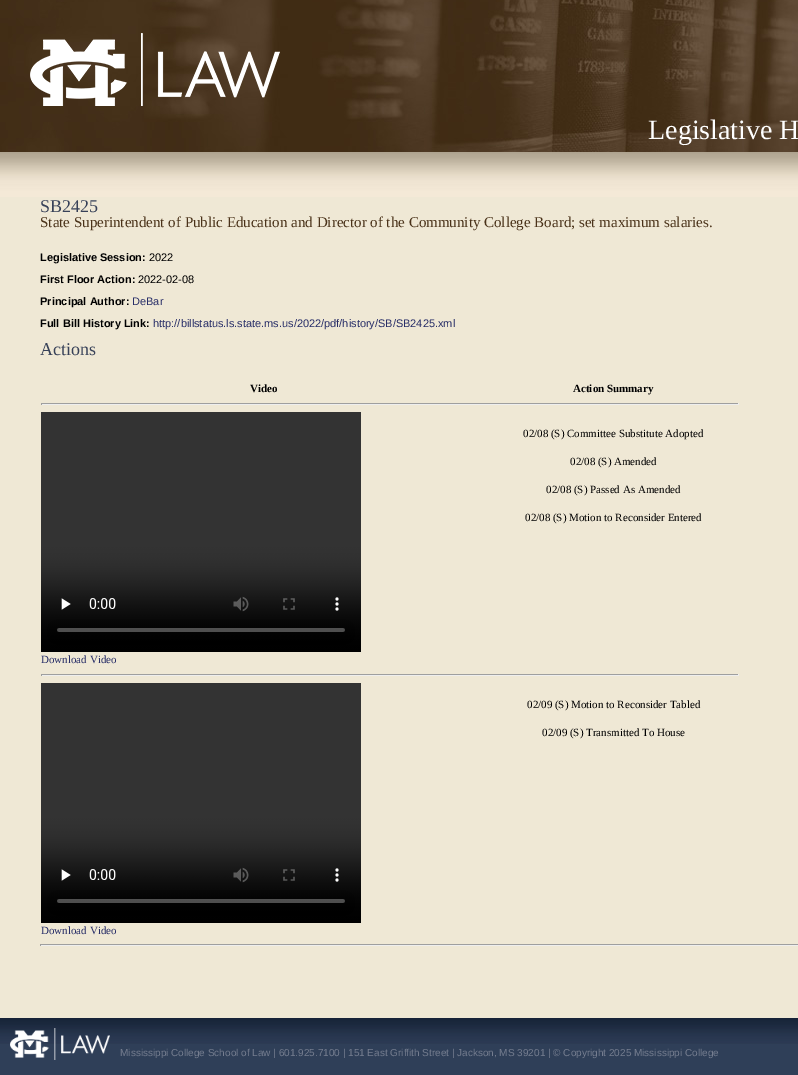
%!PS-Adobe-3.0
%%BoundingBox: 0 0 798 1075
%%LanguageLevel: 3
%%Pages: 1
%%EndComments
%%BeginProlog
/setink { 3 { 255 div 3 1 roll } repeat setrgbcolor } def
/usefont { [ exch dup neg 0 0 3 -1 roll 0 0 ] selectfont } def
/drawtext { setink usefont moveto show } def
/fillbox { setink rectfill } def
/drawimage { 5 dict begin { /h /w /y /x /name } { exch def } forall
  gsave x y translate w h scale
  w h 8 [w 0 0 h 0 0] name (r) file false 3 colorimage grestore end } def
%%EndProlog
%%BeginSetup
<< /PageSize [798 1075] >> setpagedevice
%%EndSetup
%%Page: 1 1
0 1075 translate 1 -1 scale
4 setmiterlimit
0 0 798 1075 255 255 255 fillbox
(assets/img1.rgb) 0 0 798 152 drawimage
(assets/img2.rgb) 30 33 250 73 drawimage
(Legislative H) 648 139 /LiberationSerif-Regular 28 255 255 255 drawtext
0 197 798 821 239 232 213 fillbox
(assets/img3.rgb) 0 152 798 45 drawimage
(SB2425) 40 212 /LiberationSerif-Regular 18 55 65 88 drawtext
(State Superintendent of Public Education and Director of the Community College Board; set maximum salaries.) 40 227 /LiberationSerif-Regular 15 74 50 25 drawtext
(Legislative Session:) 40 261 /LiberationSans-Bold 11 0 0 0 drawtext
(2022) 149 261 /LiberationSans-Regular 11 0 0 0 drawtext
(First Floor Action:) 40 283 /LiberationSans-Bold 11 0 0 0 drawtext
(2022-02-08) 138 283 /LiberationSans-Regular 11 0 0 0 drawtext
(Principal Author:) 40 305 /LiberationSans-Bold 11 0 0 0 drawtext
(DeBar) 132 305 /LiberationSans-Regular 11 40 46 104 drawtext
(Full Bill History Link:) 40 327 /LiberationSans-Bold 11 0 0 0 drawtext
(http://billstatus.ls.state.ms.us/2022/pdf/history/SB/SB2425.xml) 153 327 /LiberationSans-Regular 11 40 46 104 drawtext
(Actions) 40 355 /LiberationSerif-Regular 18 55 65 88 drawtext
(Video) 250 392 /LiberationSerif-Bold 11 0 0 0 drawtext
(Action Summary) 573 392 /LiberationSerif-Bold 11 0 0 0 drawtext
41 403 698 1 159 159 159 fillbox
738 403 1 2 238 238 238 fillbox
41 404 698 1 238 238 238 fillbox
41 403 1 2 159 159 159 fillbox
(02/08 \(S\) Committee Substitute Adopted) 523 437 /LiberationSerif-Regular 11 0 0 0 drawtext
(02/08 \(S\) Amended) 570 465 /LiberationSerif-Regular 11 0 0 0 drawtext
(02/08 \(S\) Passed As Amended) 546 493 /LiberationSerif-Regular 11 0 0 0 drawtext
(02/08 \(S\) Motion to Reconsider Entered) 525 521 /LiberationSerif-Regular 11 0 0 0 drawtext
(assets/img4.rgb) 41 412 320 240 drawimage
(Download Video) 41 663 /LiberationSerif-Regular 11 40 46 104 drawtext
41 674 698 1 159 159 159 fillbox
738 674 1 2 238 238 238 fillbox
41 675 698 1 238 238 238 fillbox
41 674 1 2 159 159 159 fillbox
(02/09 \(S\) Motion to Reconsider Tabled) 527 708 /LiberationSerif-Regular 11 0 0 0 drawtext
(02/09 \(S\) Transmitted To House) 542 736 /LiberationSerif-Regular 11 0 0 0 drawtext
(assets/img5.rgb) 41 683 320 240 drawimage
(Download Video) 41 934 /LiberationSerif-Regular 11 40 46 104 drawtext
40 944 758 1 159 159 159 fillbox
40 945 758 1 238 238 238 fillbox
40 944 1 2 159 159 159 fillbox
0 1044 798 31 47 63 88 fillbox
(assets/img6.rgb) 0 1018 798 26 drawimage
(assets/img7.rgb) 10 1028 100 32 drawimage
(Mississippi College School of Law | 601.925.7100 | 151 East Griffith Street | Jackson, MS 39201 | © Copyright 2025 Mississippi College) 120 1056 /LiberationSans-Regular 10 118 126 144 drawtext
showpage
%%EOF
